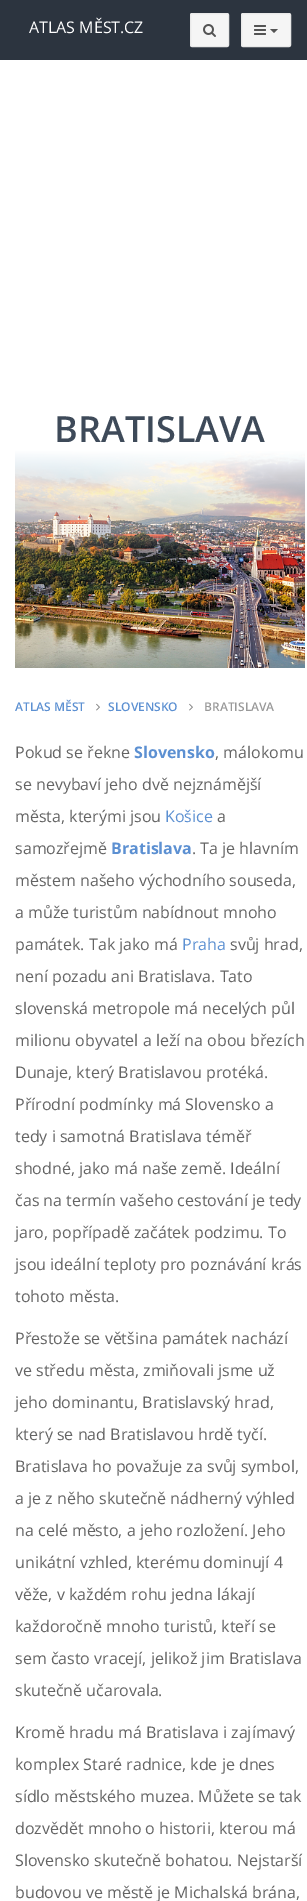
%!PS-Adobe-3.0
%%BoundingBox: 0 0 307 1901
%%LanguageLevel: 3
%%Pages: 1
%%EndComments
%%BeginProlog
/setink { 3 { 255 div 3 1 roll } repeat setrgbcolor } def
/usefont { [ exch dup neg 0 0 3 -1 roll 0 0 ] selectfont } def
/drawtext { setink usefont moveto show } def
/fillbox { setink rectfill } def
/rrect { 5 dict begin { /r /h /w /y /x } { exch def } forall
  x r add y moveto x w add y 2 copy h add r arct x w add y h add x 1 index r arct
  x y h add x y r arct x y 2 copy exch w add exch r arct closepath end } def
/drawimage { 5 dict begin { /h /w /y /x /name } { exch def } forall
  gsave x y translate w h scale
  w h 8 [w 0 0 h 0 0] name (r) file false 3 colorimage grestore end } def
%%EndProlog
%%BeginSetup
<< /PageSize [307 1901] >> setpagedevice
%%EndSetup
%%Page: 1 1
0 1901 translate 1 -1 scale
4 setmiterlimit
0 0 307 1901 44 52 63 fillbox
(ATLAS MĚST.CZ) 29 33 /OpenSans-Regular 16 255 255 255 drawtext
245 245 245 setink
190.5 13.5 38 33 1.5 rrect gsave fill grestore
233 233 233 setink
stroke
(assets/img1.rgb) 203 24 13 13 drawimage
245 245 245 setink
241.5 13.5 49 33 1.5 rrect gsave fill grestore
233 233 233 setink
stroke
(assets/img2.rgb) 254 25 12 10 drawimage
84 84 84 setink
270 29 moveto 278 29 lineto 274 33 lineto closepath fill
0 60 307 1841 255 255 255 fillbox
(BRATISLAVA) 54 442 /OpenSans-SemiBold 36 62 74 89 drawtext
(assets/img3.rgb) 15 450 290 218 drawimage
(ATLAS MĚST) 15 711 /OpenSans-SemiBold 12 92 144 210 drawtext
(assets/img4.rgb) 96 703 4 8 drawimage
(SLOVENSKO) 108 711 /OpenSans-SemiBold 12 92 144 210 drawtext
(assets/img4.rgb) 189 703 4 8 drawimage
(BRATISLAVA) 204 711 /OpenSans-SemiBold 12 153 153 153 drawtext
(Pokud se řekne) 15 758 /OpenSans-Regular 16 100 100 100 drawtext
(Slovensko) 134 758 /OpenSans-Bold 16 92 144 210 drawtext
(, málokomu) 215 758 /OpenSans-Regular 16 100 100 100 drawtext
(se nevybaví jeho dvě nejznámější) 15 790 /OpenSans-Regular 16 100 100 100 drawtext
(města, kterými jsou) 15 822 /OpenSans-Regular 16 100 100 100 drawtext
(Košice) 165 822 /OpenSans-Regular 16 92 144 210 drawtext
(a) 217 822 /OpenSans-Regular 16 100 100 100 drawtext
(samozřejmě) 15 854 /OpenSans-Regular 16 100 100 100 drawtext
(Bratislava) 111 854 /OpenSans-Bold 16 92 144 210 drawtext
(. Ta je hlavním) 192 854 /OpenSans-Regular 16 100 100 100 drawtext
(městem našeho východního souseda,) 15 886 /OpenSans-Regular 16 100 100 100 drawtext
(a může turistům nabídnout mnoho) 15 918 /OpenSans-Regular 16 100 100 100 drawtext
(památek. Tak jako má) 15 950 /OpenSans-Regular 16 100 100 100 drawtext
(Praha) 182 950 /OpenSans-Regular 16 92 144 210 drawtext
(svůj hrad,) 230 950 /OpenSans-Regular 16 100 100 100 drawtext
(není pozadu ani Bratislava. Tato) 15 982 /OpenSans-Regular 16 100 100 100 drawtext
(slovenská metropole má necelých půl) 15 1014 /OpenSans-Regular 16 100 100 100 drawtext
(milionu obyvatel a leží na obou březích) 15 1046 /OpenSans-Regular 16 100 100 100 drawtext
(Dunaje, který Bratislavou protéká.) 15 1078 /OpenSans-Regular 16 100 100 100 drawtext
(Přírodní podmínky má Slovensko a) 15 1110 /OpenSans-Regular 16 100 100 100 drawtext
(tedy i samotná Bratislava téměř) 15 1142 /OpenSans-Regular 16 100 100 100 drawtext
(shodné, jako má naše země. Ideální) 15 1174 /OpenSans-Regular 16 100 100 100 drawtext
(čas na termín vašeho cestování je tedy) 15 1206 /OpenSans-Regular 16 100 100 100 drawtext
(jaro, popřípadě začátek podzimu. To) 15 1238 /OpenSans-Regular 16 100 100 100 drawtext
(jsou ideální teploty pro poznávání krás) 15 1270 /OpenSans-Regular 16 100 100 100 drawtext
(tohoto města.) 15 1302 /OpenSans-Regular 16 100 100 100 drawtext
(Přestože se většina památek nachází) 15 1344 /OpenSans-Regular 16 100 100 100 drawtext
(ve středu města, zmiňovali jsme už) 15 1376 /OpenSans-Regular 16 100 100 100 drawtext
(jeho dominantu, Bratislavský hrad,) 15 1408 /OpenSans-Regular 16 100 100 100 drawtext
(který se nad Bratislavou hrdě tyčí.) 15 1440 /OpenSans-Regular 16 100 100 100 drawtext
(Bratislava ho považuje za svůj symbol,) 15 1472 /OpenSans-Regular 16 100 100 100 drawtext
(a je z něho skutečně nádherný výhled) 15 1504 /OpenSans-Regular 16 100 100 100 drawtext
(na celé město, a jeho rozložení. Jeho) 15 1536 /OpenSans-Regular 16 100 100 100 drawtext
(unikátní vzhled, kterému dominují 4) 15 1568 /OpenSans-Regular 16 100 100 100 drawtext
(věže, v každém rohu jedna lákají) 15 1600 /OpenSans-Regular 16 100 100 100 drawtext
(každoročně mnoho turistů, kteří se) 15 1632 /OpenSans-Regular 16 100 100 100 drawtext
(sem často vracejí, jelikož jim Bratislava) 15 1664 /OpenSans-Regular 16 100 100 100 drawtext
(skutečně učarovala.) 15 1696 /OpenSans-Regular 16 100 100 100 drawtext
(Kromě hradu má Bratislava i zajímavý) 15 1738 /OpenSans-Regular 16 100 100 100 drawtext
(komplex Staré radnice, kde je dnes) 15 1770 /OpenSans-Regular 16 100 100 100 drawtext
(sídlo městského muzea. Můžete se tak) 15 1802 /OpenSans-Regular 16 100 100 100 drawtext
(dozvědět mnoho o historii, kterou má) 15 1834 /OpenSans-Regular 16 100 100 100 drawtext
(Slovensko skutečně bohatou. Nejstarší) 15 1866 /OpenSans-Regular 16 100 100 100 drawtext
(budovou ve městě je Michalská brána,) 15 1898 /OpenSans-Regular 16 100 100 100 drawtext
showpage
%%EOF
